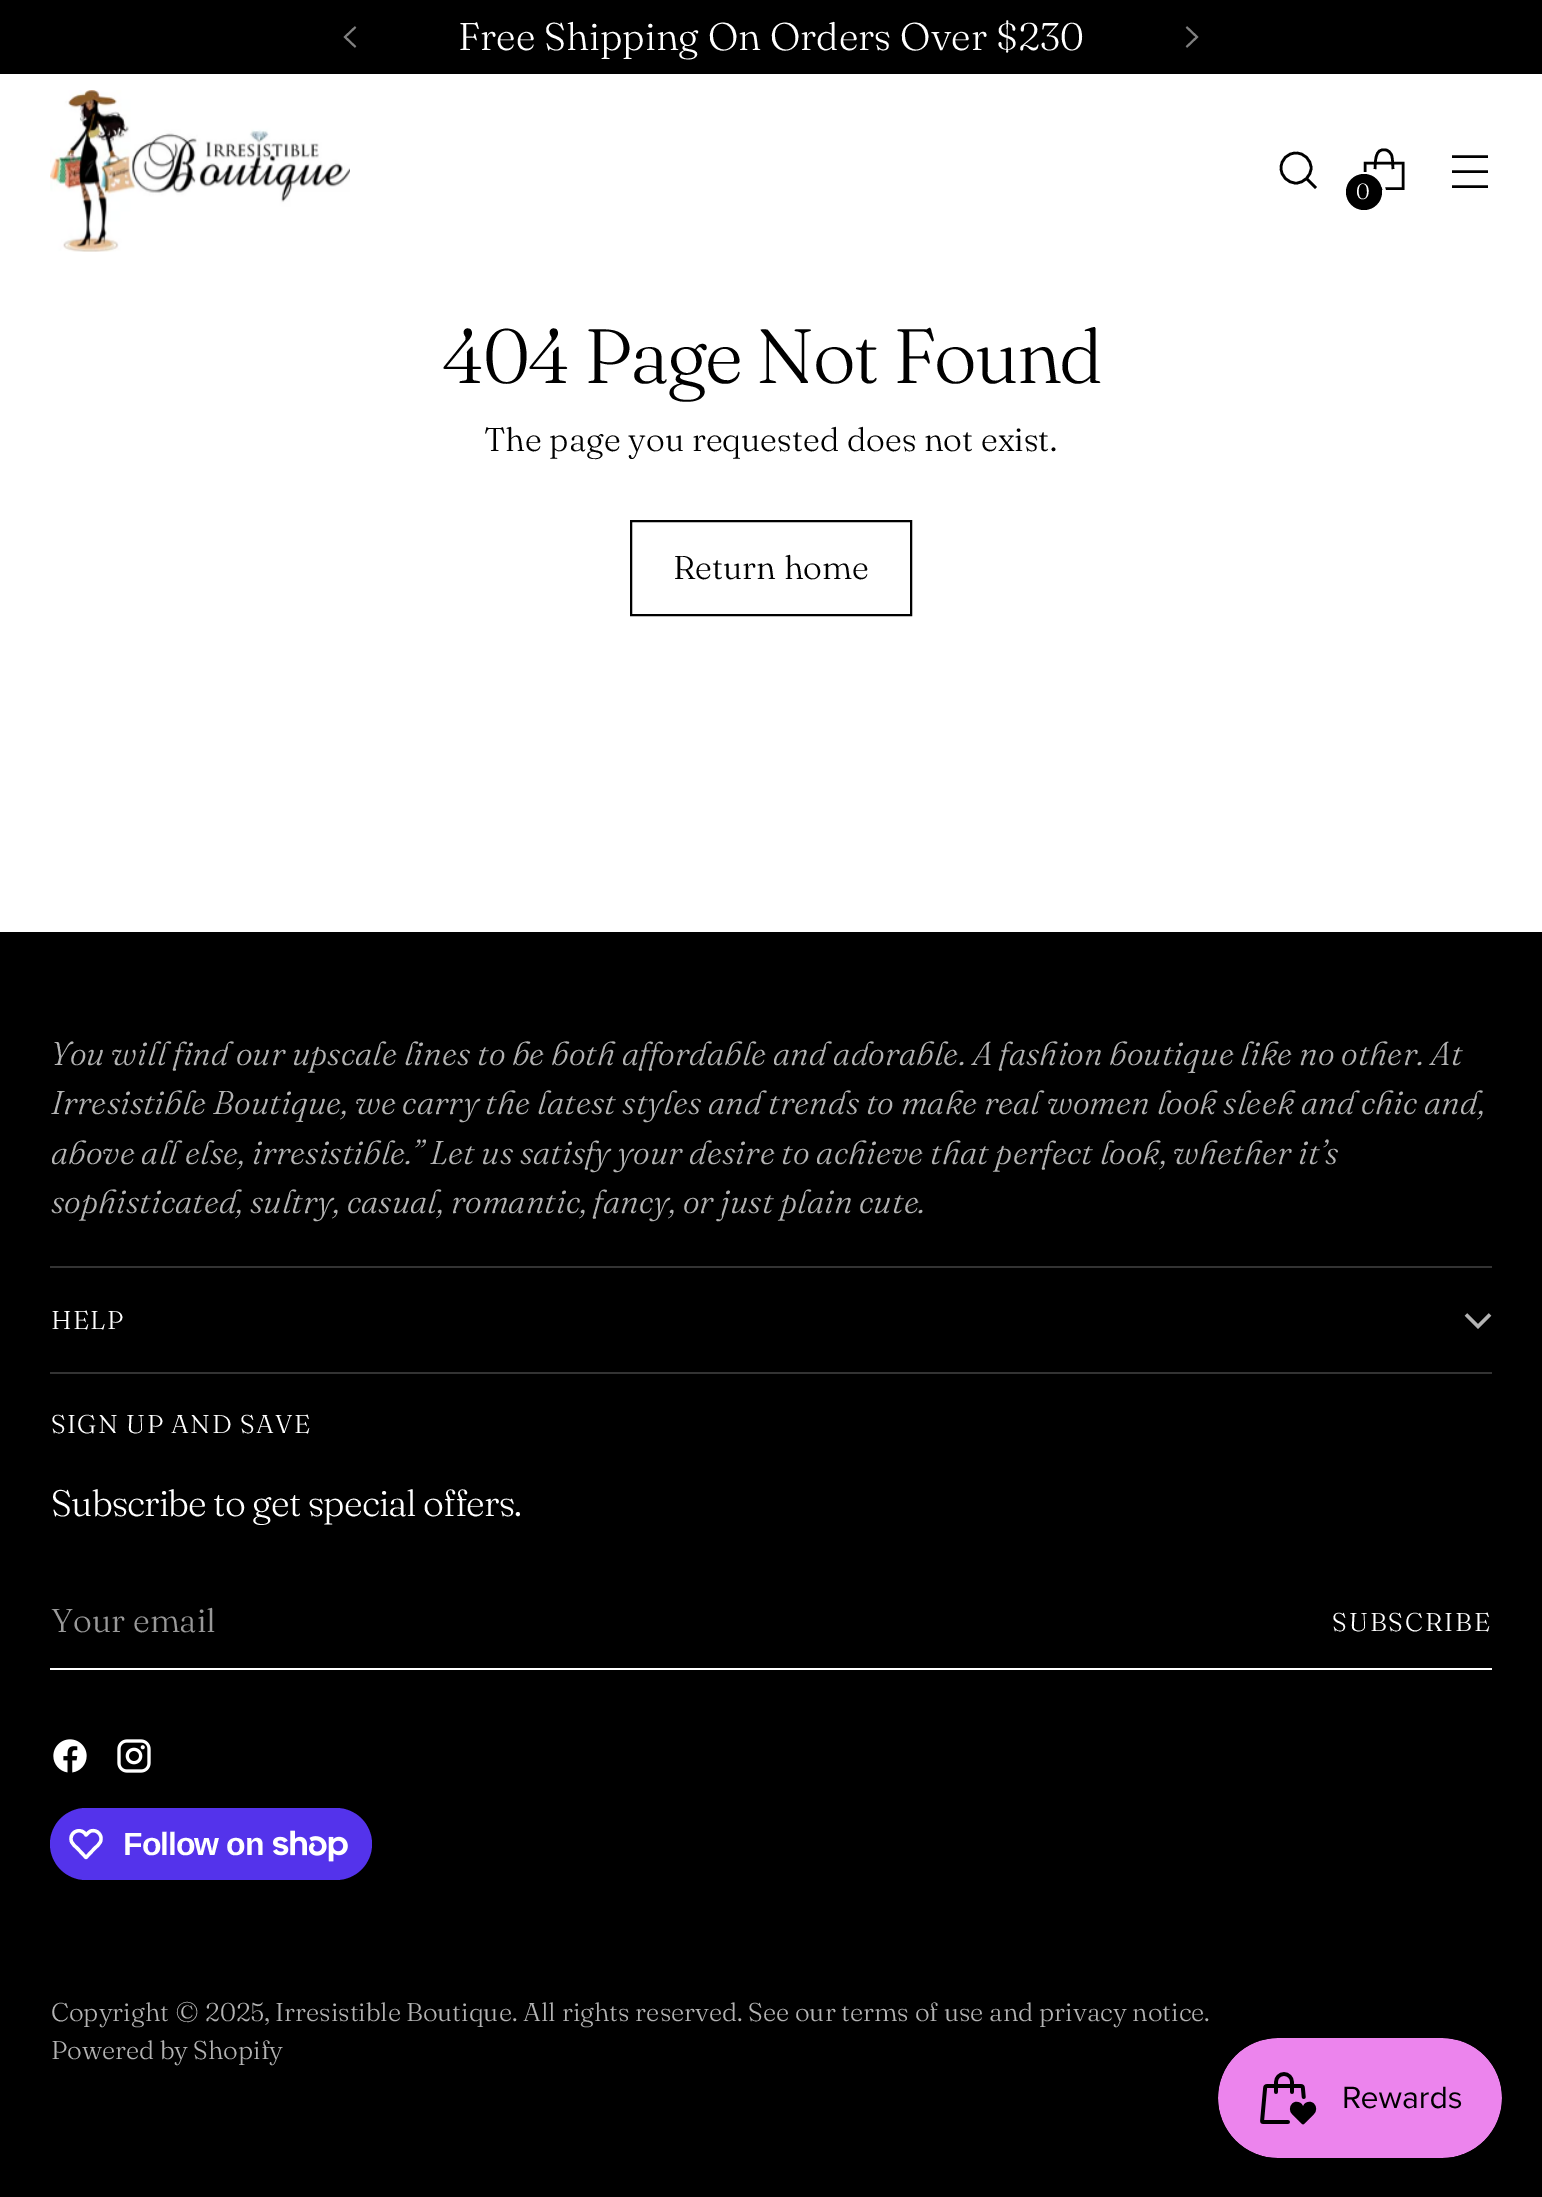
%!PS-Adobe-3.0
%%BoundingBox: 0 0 1542 2197
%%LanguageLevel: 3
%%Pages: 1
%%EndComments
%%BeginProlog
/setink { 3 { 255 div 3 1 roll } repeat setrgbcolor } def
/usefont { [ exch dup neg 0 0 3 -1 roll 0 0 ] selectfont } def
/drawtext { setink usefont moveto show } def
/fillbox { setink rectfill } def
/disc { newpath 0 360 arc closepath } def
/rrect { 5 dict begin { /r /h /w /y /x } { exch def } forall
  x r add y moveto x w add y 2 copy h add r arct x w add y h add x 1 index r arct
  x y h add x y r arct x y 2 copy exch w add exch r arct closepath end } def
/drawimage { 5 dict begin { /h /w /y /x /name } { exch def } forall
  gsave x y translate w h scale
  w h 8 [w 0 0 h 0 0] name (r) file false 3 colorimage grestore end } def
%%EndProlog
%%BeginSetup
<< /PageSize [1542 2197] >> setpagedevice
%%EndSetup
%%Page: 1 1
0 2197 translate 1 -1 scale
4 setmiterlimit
0 0 1542 2197 255 255 255 fillbox
0 0 1542 74 0 0 0 fillbox
(Free Shipping On Orders Over $230) 458 50 /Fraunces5-Light 38.5 255 255 255 drawtext
128 128 128 setink
2 setlinewidth
355.5 27 moveto 345 37 lineto 355.5 47 lineto stroke
1186.5 47 moveto 1197 37 lineto 1186.5 27 lineto stroke
(assets/img1.rgb) 50 90 300 162 drawimage
0 0 0 setink
2.6 setlinewidth
1 setlinecap
1296 183 moveto 1304 183 1311 176 1311 168 curveto 1311 159.5 1304 153 1296 153 curveto 1287.5 153 1281 159.5 1281 168 curveto 1281 176 1287.5 183 1296 183 curveto closepath stroke
0 setlinecap
1306.5 178.5 moveto 1316 188 lineto stroke
1452 171.5 moveto 1488 171.5 lineto 1452 156.5 moveto 1488 156.5 lineto 1452 186.5 moveto 1488 186.5 lineto stroke
2 setlinejoin
1393 169 moveto 1392.5 164.5 1393 159.5 1391.5 155 curveto 1390.5 152.5 1388.5 150.5 1386 150 curveto 1374.5 147.5 1375.5 162 1375 169 curveto stroke
0 setlinejoin
1403 188.5 moveto 1403 163 lineto 1365 163 lineto 1365 188.5 lineto closepath stroke
255 255 255 setink
3 setlinewidth
1365 193 19.5 disc stroke
0 0 0 setink
1364 192 18 disc fill
(0) 1356 199 /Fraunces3-Light 22 255 255 255 drawtext
/Fraunces-Light 76.75 usefont
0 0 0 setink
442 383 moveto -1.9 0 (404 Page Not Found) ashow
(The page you requested does not exist.) 484 451 /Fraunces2-Light 33.05 0 0 0 drawtext
2 setlinewidth
631 521 280 94 rectstroke
(Return home) 673 579 /Fraunces2-Light 33.05 0 0 0 drawtext
0 932 1542 1265 0 0 0 fillbox
50 1266 1442 2 51 51 51 fillbox
(You will find our upscale lines to be both affordable and adorable. A fashion boutique like no other. At) 51 1065 /Fraunces-LightItalic 33.05 179 179 179 drawtext
(Irresistible Boutique, we carry the latest styles and trends to make real women look sleek and chic and,) 51 1114 /Fraunces-LightItalic 33.05 179 179 179 drawtext
(above all else, irresistible.” Let us satisfy your desire to achieve that perfect look, whether it’s) 51 1164 /Fraunces-LightItalic 33.05 179 179 179 drawtext
(sophisticated, sultry, casual, romantic, fancy, or just plain cute) 51 1213 /Fraunces-LightItalic 33.05 179 179 179 drawtext
(.) 918 1213 /Fraunces-LightItalic 33.05 179 179 179 drawtext
50 1372 1442 2 51 51 51 fillbox
/Fraunces3-Light 25.7 usefont
255 255 255 setink
51 1329 moveto 1.25 0 (HELP) ashow
179 179 179 setink
3.2 setlinewidth
1466 1314.5 moveto 1478 1326.5 lineto 1490 1314.5 lineto stroke
255 255 255 setink
51 1433 moveto 1.25 0 (SIGN UP AND SAVE) ashow
/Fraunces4-Light 36.75 usefont
51 1516 moveto -0.9 0 (Subscribe to get special offers.) ashow
50 1668 1442 2 255 255 255 fillbox
(Your email) 51 1632 /Fraunces2-Light 33.05 153 153 153 drawtext
/Fraunces3-Light 25.7 usefont
255 255 255 setink
1332 1631 moveto 2 0 (SUBSCRIBE) ashow
(assets/img2.rgb) 53 1739 34 34 drawimage
(assets/img3.rgb) 117 1739 34 34 drawimage
84 51 235 setink
50 1808 322 72 36 rrect fill
255 255 255 setink
3.3 setlinewidth
1 setlinejoin
84.5 1833 moveto 86 1835 lineto 87.5 1833.5 89 1831.5 91 1831 curveto 97 1829 103 1835.5 100.5 1841.5 curveto 99.5 1844.5 96.5 1846.5 94.5 1848.5 curveto 86 1857.5 lineto 77.5 1848.5 lineto 75.5 1846.5 72.5 1844.5 71.5 1841.5 curveto 68.5 1833.5 78.5 1827 84.5 1833 curveto closepath stroke
/LiberationSans-Bold 32 usefont
123 1855 moveto -1 0 (Follow on) ashow
(assets/img4.rgb) 273 1830 75 32 drawimage
(Copyright © 2025,) 51 2021 /Fraunces3-Light 25.7 179 179 179 drawtext
275 2021 moveto -1 0 32 (Irresistible Boutique) widthshow
(.) 512 2021 /Fraunces3-Light 25.7 179 179 179 drawtext
(All rights reserved.) 523 2021 /Fraunces3-Light 25.7 179 179 179 drawtext
748 2021 moveto -0.25 0 32 (See our terms of use and privacy notice.) widthshow
51 2059 moveto -1 0 32 (Powered by Shopify) widthshow
(assets/img5.rgb) 1218 2038 284 120 drawimage
showpage
%%EOF
